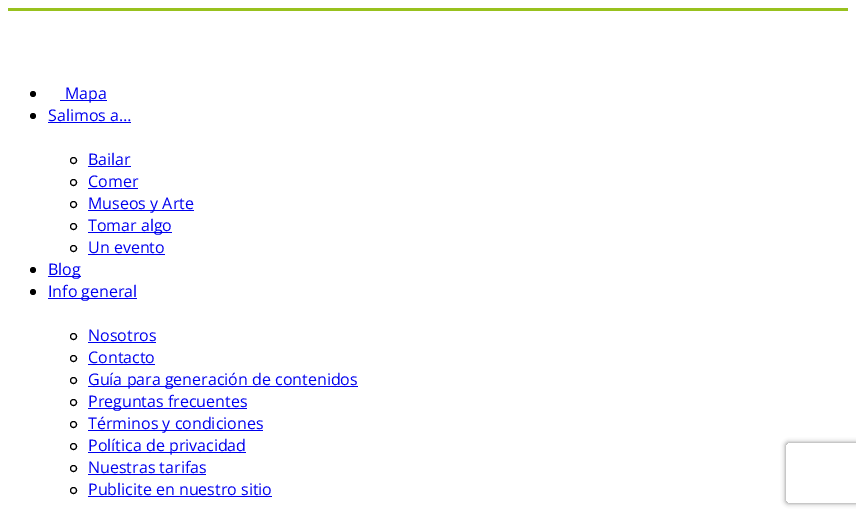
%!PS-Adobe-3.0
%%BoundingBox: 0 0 856 517
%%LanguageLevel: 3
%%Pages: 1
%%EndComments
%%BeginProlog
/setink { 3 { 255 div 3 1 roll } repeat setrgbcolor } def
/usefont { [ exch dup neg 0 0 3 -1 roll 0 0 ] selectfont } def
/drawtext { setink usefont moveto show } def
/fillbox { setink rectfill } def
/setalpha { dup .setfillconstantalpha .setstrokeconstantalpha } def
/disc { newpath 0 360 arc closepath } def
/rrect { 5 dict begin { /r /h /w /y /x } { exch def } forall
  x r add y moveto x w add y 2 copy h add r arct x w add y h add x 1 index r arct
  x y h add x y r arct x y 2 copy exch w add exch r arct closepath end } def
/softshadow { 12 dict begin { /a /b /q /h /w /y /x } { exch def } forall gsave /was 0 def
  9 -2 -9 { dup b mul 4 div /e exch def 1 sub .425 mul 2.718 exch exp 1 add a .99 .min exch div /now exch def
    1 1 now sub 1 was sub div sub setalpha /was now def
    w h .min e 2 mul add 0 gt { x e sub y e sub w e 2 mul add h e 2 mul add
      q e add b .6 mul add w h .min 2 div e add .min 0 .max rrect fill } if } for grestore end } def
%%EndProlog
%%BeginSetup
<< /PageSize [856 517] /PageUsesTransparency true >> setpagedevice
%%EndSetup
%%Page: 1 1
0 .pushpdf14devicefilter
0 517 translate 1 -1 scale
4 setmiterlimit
0 0 856 517 255 255 255 fillbox
8 8 840 3 152 193 30 fillbox
0 0 0 setink
33 94 3 disc fill
60 100 47 1 0 0 238 fillbox
(Mapa) 65 99 /OpenSans-Regular 16 0 0 238 drawtext
0 0 0 setink
33 116 3 disc fill
(Salimos a…) 48 121 /OpenSans-Regular 16 0 0 238 drawtext
48 122 83 1 0 0 238 fillbox
0 0 0 setink
73.5 160.5 3 disc stroke
(Bailar) 88 165 /OpenSans-Regular 16 0 0 238 drawtext
88 166 43 1 0 0 238 fillbox
0 0 0 setink
73.5 182.5 3 disc stroke
(Comer) 88 187 /OpenSans-Regular 16 0 0 238 drawtext
88 188 50 1 0 0 238 fillbox
0 0 0 setink
73.5 204.5 3 disc stroke
88 210 106 1 0 0 238 fillbox
(Museos y Arte) 88 209 /OpenSans-Regular 16 0 0 238 drawtext
0 0 0 setink
73.5 226.5 3 disc stroke
88 232 84 1 0 0 238 fillbox
(Tomar algo) 88 231 /OpenSans-Regular 16 0 0 238 drawtext
0 0 0 setink
73.5 248.5 3 disc stroke
(Un evento) 88 253 /OpenSans-Regular 16 0 0 238 drawtext
88 254 77 1 0 0 238 fillbox
0 0 0 setink
33 270 3 disc fill
48 276 33 1 0 0 238 fillbox
(Blog) 48 275 /OpenSans-Regular 16 0 0 238 drawtext
0 0 0 setink
33 292 3 disc fill
48 298 89 1 0 0 238 fillbox
(Info general) 48 297 /OpenSans-Regular 16 0 0 238 drawtext
0 0 0 setink
73.5 336.5 3 disc stroke
(Nosotros) 88 341 /OpenSans-Regular 16 0 0 238 drawtext
88 342 68 1 0 0 238 fillbox
0 0 0 setink
73.5 358.5 3 disc stroke
(Contacto) 88 363 /OpenSans-Regular 16 0 0 238 drawtext
88 364 67 1 0 0 238 fillbox
0 0 0 setink
73.5 380.5 3 disc stroke
88 386 270 1 0 0 238 fillbox
(Guía para generación de contenidos) 88 385 /OpenSans-Regular 16 0 0 238 drawtext
0 0 0 setink
73.5 402.5 3 disc stroke
88 408 159 1 0 0 238 fillbox
(Preguntas frecuentes) 88 407 /OpenSans-Regular 16 0 0 238 drawtext
0 0 0 setink
73.5 424.5 3 disc stroke
88 430 175 1 0 0 238 fillbox
(Términos y condiciones) 88 429 /OpenSans-Regular 16 0 0 238 drawtext
0 0 0 setink
73.5 446.5 3 disc stroke
88 452 158 1 0 0 238 fillbox
(Política de privacidad) 88 451 /OpenSans-Regular 16 0 0 238 drawtext
0 0 0 setink
73.5 468.5 3 disc stroke
(Nuestras tarifas) 88 473 /OpenSans-Regular 16 0 0 238 drawtext
88 474 118 1 0 0 238 fillbox
0 0 0 setink
73.5 490.5 3 disc stroke
(Publicite en nuestro sitio) 88 495 /OpenSans-Regular 16 0 0 238 drawtext
88 496 184 1 0 0 238 fillbox
gsave
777 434 moveto 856 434 lineto 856 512 lineto 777 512 lineto closepath 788 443 moveto 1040 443 lineto 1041 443 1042 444 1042 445 curveto 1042 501 lineto 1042 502 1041 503 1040 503 curveto 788 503 lineto 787 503 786 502 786 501 curveto 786 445 lineto 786 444 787 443 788 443 curveto closepath eoclip newpath
128 128 128 setink
786 443 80 60 2 2.5 1 softshadow
grestore
.poppdf14devicefilter showpage
%%EOF
